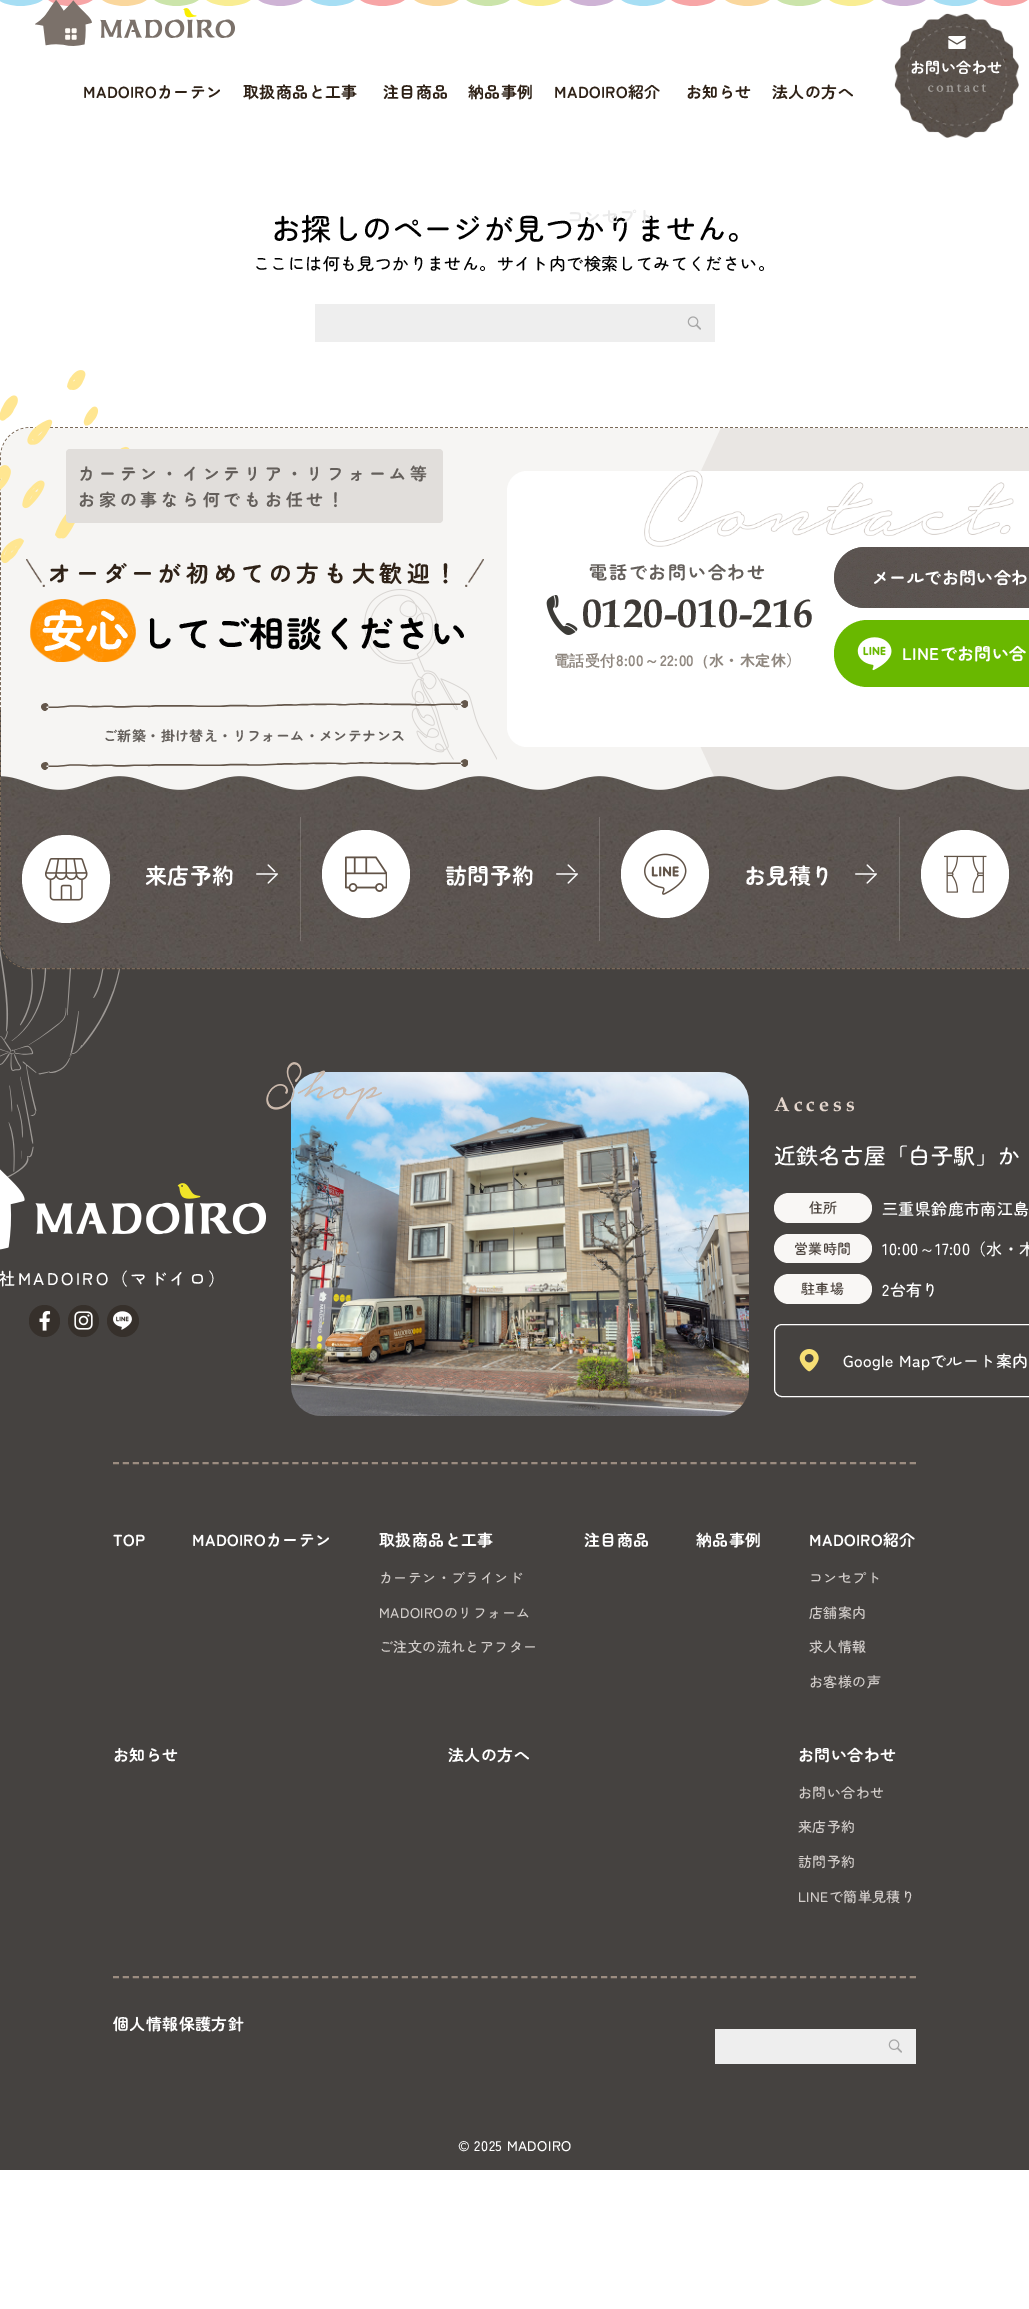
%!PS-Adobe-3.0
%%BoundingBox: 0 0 1029 2309
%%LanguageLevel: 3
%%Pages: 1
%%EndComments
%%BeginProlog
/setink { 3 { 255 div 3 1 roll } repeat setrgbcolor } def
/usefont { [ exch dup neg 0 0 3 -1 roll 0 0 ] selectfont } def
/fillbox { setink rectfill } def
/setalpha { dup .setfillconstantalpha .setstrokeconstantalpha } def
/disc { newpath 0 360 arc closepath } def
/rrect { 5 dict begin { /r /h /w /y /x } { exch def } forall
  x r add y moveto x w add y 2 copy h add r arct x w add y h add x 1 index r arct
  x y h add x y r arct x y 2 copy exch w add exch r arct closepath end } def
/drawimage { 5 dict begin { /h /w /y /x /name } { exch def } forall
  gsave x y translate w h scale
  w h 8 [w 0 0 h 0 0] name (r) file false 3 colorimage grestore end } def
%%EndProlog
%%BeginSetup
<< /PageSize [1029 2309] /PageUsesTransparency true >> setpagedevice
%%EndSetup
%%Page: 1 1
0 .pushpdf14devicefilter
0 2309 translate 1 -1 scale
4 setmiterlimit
0 0 1029 2309 255 255 255 fillbox
(assets/img1.rgb) 0 0 1028 6 drawimage
(assets/img2.rgb) 35 0 200 46 drawimage
(assets/img3.rgb) 894 13 125 125 drawimage
(assets/img4.rgb) 948 36 18 13 drawimage
/ZenMaruGothic-Bold 15 usefont
910 73 moveto 0.4 0 (お問い合わせ) ashow
(assets/img5.rgb) 928 84 58 8 drawimage
/ZenMaruGothic-Bold 16 usefont
47 34 23 setink
83 98 moveto 0.4 0 (MADOIROカーテン) ashow
243 98 moveto 0.4 0 (取扱商品と工事) ashow
383 98 moveto 0.4 0 (注目商品) ashow
468 98 moveto 0.4 0 (納品事例) ashow
554 98 moveto 0.4 0 (MADOIRO紹介) ashow
/ZenMaruGothic-Medium 30 usefont
0 0 0 setink
271 240 moveto 0.4 0 (お探しのページが見つかりません。) ashow
/ZenMaruGothic-Bold 17 usefont
235 235 235 setink
567 223 moveto 0.4 0 (コンセプト) ashow
/ZenMaruGothic-Bold 16 usefont
47 34 23 setink
686 98 moveto 0.4 0 (お知らせ) ashow
772 98 moveto 0.4 0 (法人の方へ) ashow
/ZenMaruGothic-Medium 17 usefont
0 0 0 setink
253 270 moveto 0.4 0 (ここには何も見つかりません。サイト内で検索してみてください。) ashow
315 304 400 38 238 238 238 fillbox
(assets/img6.rgb) 687 316 14 14 drawimage
0 707 1029 1463 69 66 64 fillbox
(assets/img26.rgb) 0 945 120 233 drawimage
123 105 88 setink
[3 2] 0 setdash
30 427.5 moveto 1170 427.5 lineto 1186.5 427.5 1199.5 440.5 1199.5 457 curveto 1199.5 939 lineto 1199.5 955.5 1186.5 968.5 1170 968.5 curveto 30 968.5 lineto 13.5 968.5 0.5 955.5 0.5 939 curveto 0.5 457 lineto 0.5 440.5 13.5 427.5 30 427.5 curveto closepath stroke
246 245 243 setink
31 428 moveto 1029 428 lineto 1029 791 lineto 1 791 lineto 1 458 lineto 1 441.5 14.5 428 31 428 curveto closepath fill
(assets/img7.rgb) 0 370 130 193 drawimage
225 222 219 setink
66 449 377 74 4 rrect fill
/ZenMaruGothic-Bold 17 usefont
100 95 91 setink
78 480 moveto 3.75 0 (カーテン・インテリア・リフォーム等) ashow
78 506 moveto 3.75 0 (お家の事なら何でもお任せ！) ashow
(assets/img8.rgb) 26 559 19 28 drawimage
/ZenMaruGothic-Bold 23 usefont
47 34 23 setink
48 582 moveto 4.6 0 (オーダーが初めての方も大歓迎！) ashow
(assets/img9.rgb) 465 559 19 28 drawimage
(assets/img10.rgb) 30 599 106 63 drawimage
/ZenMaruGothic-Bold 44 usefont
255 255 255 setink
41 647 moveto 0.4 0 (安心) ashow
(assets/img12.rgb) 364 589 133 171 drawimage
/ZenMaruGothic-Bold 36 usefont
0 0 0 setink
140 647 moveto 0.4 0 (してご相談ください) ashow
(assets/img11.rgb) 41 700 427 70 drawimage
/ZenMaruGothic-Bold 14 usefont
100 95 91 setink
103 741 moveto 0.4 0 (ご新築・掛け替え・リフォーム・メンテナンス) ashow
233 230 227 setink
721 428 moveto 637 609 lineto 721 791 lineto 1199 791 lineto 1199 458 lineto 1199 442 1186 429 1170 428 curveto closepath fill
255 255 255 setink
527 471 moveto 1029 471 lineto 1029 747 lineto 527 747 lineto 516 747 507 738 507 727 curveto 507 491 lineto 507 480 516 471 527 471 curveto closepath fill
(assets/img13.rgb) 644 470 370 77 drawimage
/ZenMaruGothic-Bold 18 usefont
100 95 91 setink
589 579 moveto 1.75 0 (電話でお問い合わせ) ashow
(assets/img14.rgb) 546 595 32 40 drawimage
/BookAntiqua-Bold 40 usefont
63 59 55 setink
582 627 moveto 0.4 0 (0120-010-216) ashow
/WenQuanYiZenHei-Bold 15 usefont
143 135 127 setink
554 666 moveto 0.4 0 (電話受付) ashow
/ZenMaruGothic-Bold 15 usefont
616 666 moveto 0.4 0 (8:00) ashow
/WenQuanYiZenHei-Bold 15 usefont
644 666 moveto 0.4 0 (～) ashow
/ZenMaruGothic-Bold 15 usefont
660 666 moveto 0.4 0 (22:00) ashow
/WenQuanYiZenHei-Bold 15 usefont
694 666 moveto 0.4 0 (（) ashow
/ZenMaruGothic-Bold 15 usefont
709 666 moveto 0.4 0 (水・木定休）) ashow
94 88 84 setink
864.5 547 moveto 1029 547 lineto 1029 608 lineto 864.5 608 lineto 847.5 608 834 594.5 834 577.5 curveto 834 560.5 847.5 547 864.5 547 curveto closepath fill
(assets/img15.rgb) 834 547 195 61 drawimage
/ZenMaruGothic-Bold 17 usefont
255 255 255 setink
872 584 moveto 0.4 0 (メールでお問い合わ) ashow
105 184 0 setink
867.5 620 moveto 1029 620 lineto 1029 687 lineto 867.5 687 lineto 849 687 834 672 834 653.5 curveto 834 635 849 620 867.5 620 curveto closepath fill
(assets/img16.rgb) 857 637 35 34 drawimage
255 255 255 setink
902 660 moveto 0.4 0 (LINEでお問い合) ashow
(assets/img17.rgb) 1 792 1028 176 drawimage
(assets/img18.rgb) 1 776 1028 16 drawimage
0.18 setalpha
300 817 1 124 250 247 245 fillbox
1 setalpha
255 255 255 setink
66 879 44 disc fill
(assets/img19.rgb) 45 858 43 43 drawimage
/ZenMaruGothic-Bold 22 usefont
145 884 moveto 0.4 0 (来店予約) ashow
(assets/img20.rgb) 256 864 22 20 drawimage
0.18 setalpha
599 817 1 124 250 247 245 fillbox
1 setalpha
255 255 255 setink
366 874 44 disc fill
(assets/img21.rgb) 345 856 42 36 drawimage
445 884 moveto 0.4 0 (訪問予約) ashow
(assets/img22.rgb) 556 864 22 20 drawimage
0.18 setalpha
899 817 1 124 250 247 245 fillbox
1 setalpha
255 255 255 setink
665 874 44 disc fill
(assets/img23.rgb) 644 853 43 42 drawimage
744 884 moveto 0.4 0 (お見積り) ashow
(assets/img24.rgb) 855 864 22 20 drawimage
965 874 44 disc fill
(assets/img25.rgb) 944 855 43 38 drawimage
(assets/img27.rgb) 0 1169 266 81 drawimage
/ZenMaruGothic-Medium 17 usefont
-2 1285 moveto 2.5 0 (社MADOIRO（マドイロ）) ashow
54 48 43 setink
29 1305 31 32 15.5 rrect fill
(assets/img28.rgb) 39 1311 12 20 drawimage
68 1305 31 32 15.5 rrect fill
(assets/img29.rgb) 74 1311 19 19 drawimage
123 1321 16 disc fill
(assets/img30.rgb) 113 1311 19 19 drawimage
(assets/img32.rgb) 291 1072 458 344 drawimage
(assets/img31.rgb) 266 1062 116 58 drawimage
/BookAntiqua-Bold 20 usefont
227 213 204 setink
774 1111 moveto 4 0 (Access) ashow
/ZenMaruGothic-Medium 22 usefont
255 255 255 setink
774 1164 moveto 0.4 0 (近鉄名古屋「白子駅」か) ashow
249 247 245 setink
774 1193 98 30 15 rrect fill
/ZenMaruGothic-Medium 14 usefont
74 66 60 setink
809 1213 moveto 0.4 0 (住所) ashow
/ZenMaruGothic-Medium 16 usefont
255 255 255 setink
882 1215 moveto 0.4 0 (三重県鈴鹿市南江島) ashow
249 247 245 setink
774 1234 98 29 14.5 rrect fill
/ZenMaruGothic-Medium 14 usefont
74 66 60 setink
794 1254 moveto 0.4 0 (営業時間) ashow
/ZenMaruGothic-Medium 16 usefont
255 255 255 setink
882 1255 moveto 0.4 0 (10:00) ashow
/WenQuanYiZenHei-Medium 16 usefont
919 1255 moveto 0.4 0 (～) ashow
/ZenMaruGothic-Medium 16 usefont
935 1255 moveto 0.4 0 (17:00（水・木) ashow
249 247 245 setink
774 1274 98 30 15 rrect fill
/ZenMaruGothic-Medium 14 usefont
74 66 60 setink
801 1294 moveto 0.4 0 (駐車場) ashow
/ZenMaruGothic-Medium 16 usefont
255 255 255 setink
882 1296 moveto 0.4 0 (2台有り) ashow
[] 0 setdash
774.5 1324.5 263 72 7.5 rrect stroke
(assets/img33.rgb) 799 1349 20 23 drawimage
843 1367 moveto 0.4 0 (Google Mapでルート案内) ashow
155 140 128 setink
2 setlinewidth
[6 3.96] 0 setdash
113 1463 moveto 916 1463 lineto stroke
113 1977 moveto 916 1977 lineto stroke
/ZenMaruGothic-Bold 16 usefont
255 255 255 setink
113 1546 moveto 0.4 0 (TOP) ashow
192 1546 moveto 0.4 0 (MADOIROカーテン) ashow
379 1546 moveto 0.4 0 (取扱商品と工事) ashow
/ZenMaruGothic-Medium 14 usefont
210 205 202 setink
379 1583 moveto 0.4 0 (カーテン・ブラインド) ashow
379 1618 moveto 0.4 0 (MADOIROのリフォーム) ashow
379 1652 moveto 0.4 0 (ご注文の流れとアフター) ashow
/ZenMaruGothic-Bold 16 usefont
255 255 255 setink
584 1546 moveto 0.4 0 (注目商品) ashow
696 1546 moveto 0.4 0 (納品事例) ashow
809 1546 moveto 0.4 0 (MADOIRO紹介) ashow
/ZenMaruGothic-Medium 14 usefont
210 205 202 setink
809 1583 moveto 0.4 0 (コンセプト) ashow
809 1618 moveto 0.4 0 (店舗案内) ashow
809 1652 moveto 0.4 0 (求人情報) ashow
809 1687 moveto 0.4 0 (お客様の声) ashow
/ZenMaruGothic-Bold 16 usefont
255 255 255 setink
113 1761 moveto 0.4 0 (お知らせ) ashow
448 1761 moveto 0.4 0 (法人の方へ) ashow
798 1761 moveto 0.4 0 (お問い合わせ) ashow
/ZenMaruGothic-Medium 14 usefont
210 205 202 setink
798 1798 moveto 0.4 0 (お問い合わせ) ashow
798 1832 moveto 0.4 0 (来店予約) ashow
798 1867 moveto 0.4 0 (訪問予約) ashow
798 1902 moveto 0.4 0 (LINEで簡単見積り) ashow
/ZenMaruGothic-Bold 16 usefont
255 255 255 setink
113 2030 moveto 0.4 0 (個人情報保護方針) ashow
715 2029 201 35 238 238 238 fillbox
(assets/img6.rgb) 888 2039 14 14 drawimage
/ZenMaruGothic-Medium 14 usefont
255 255 255 setink
458 2151 moveto 0.4 0 (© 2025 MADOIRO) ashow
.poppdf14devicefilter showpage
%%EOF
